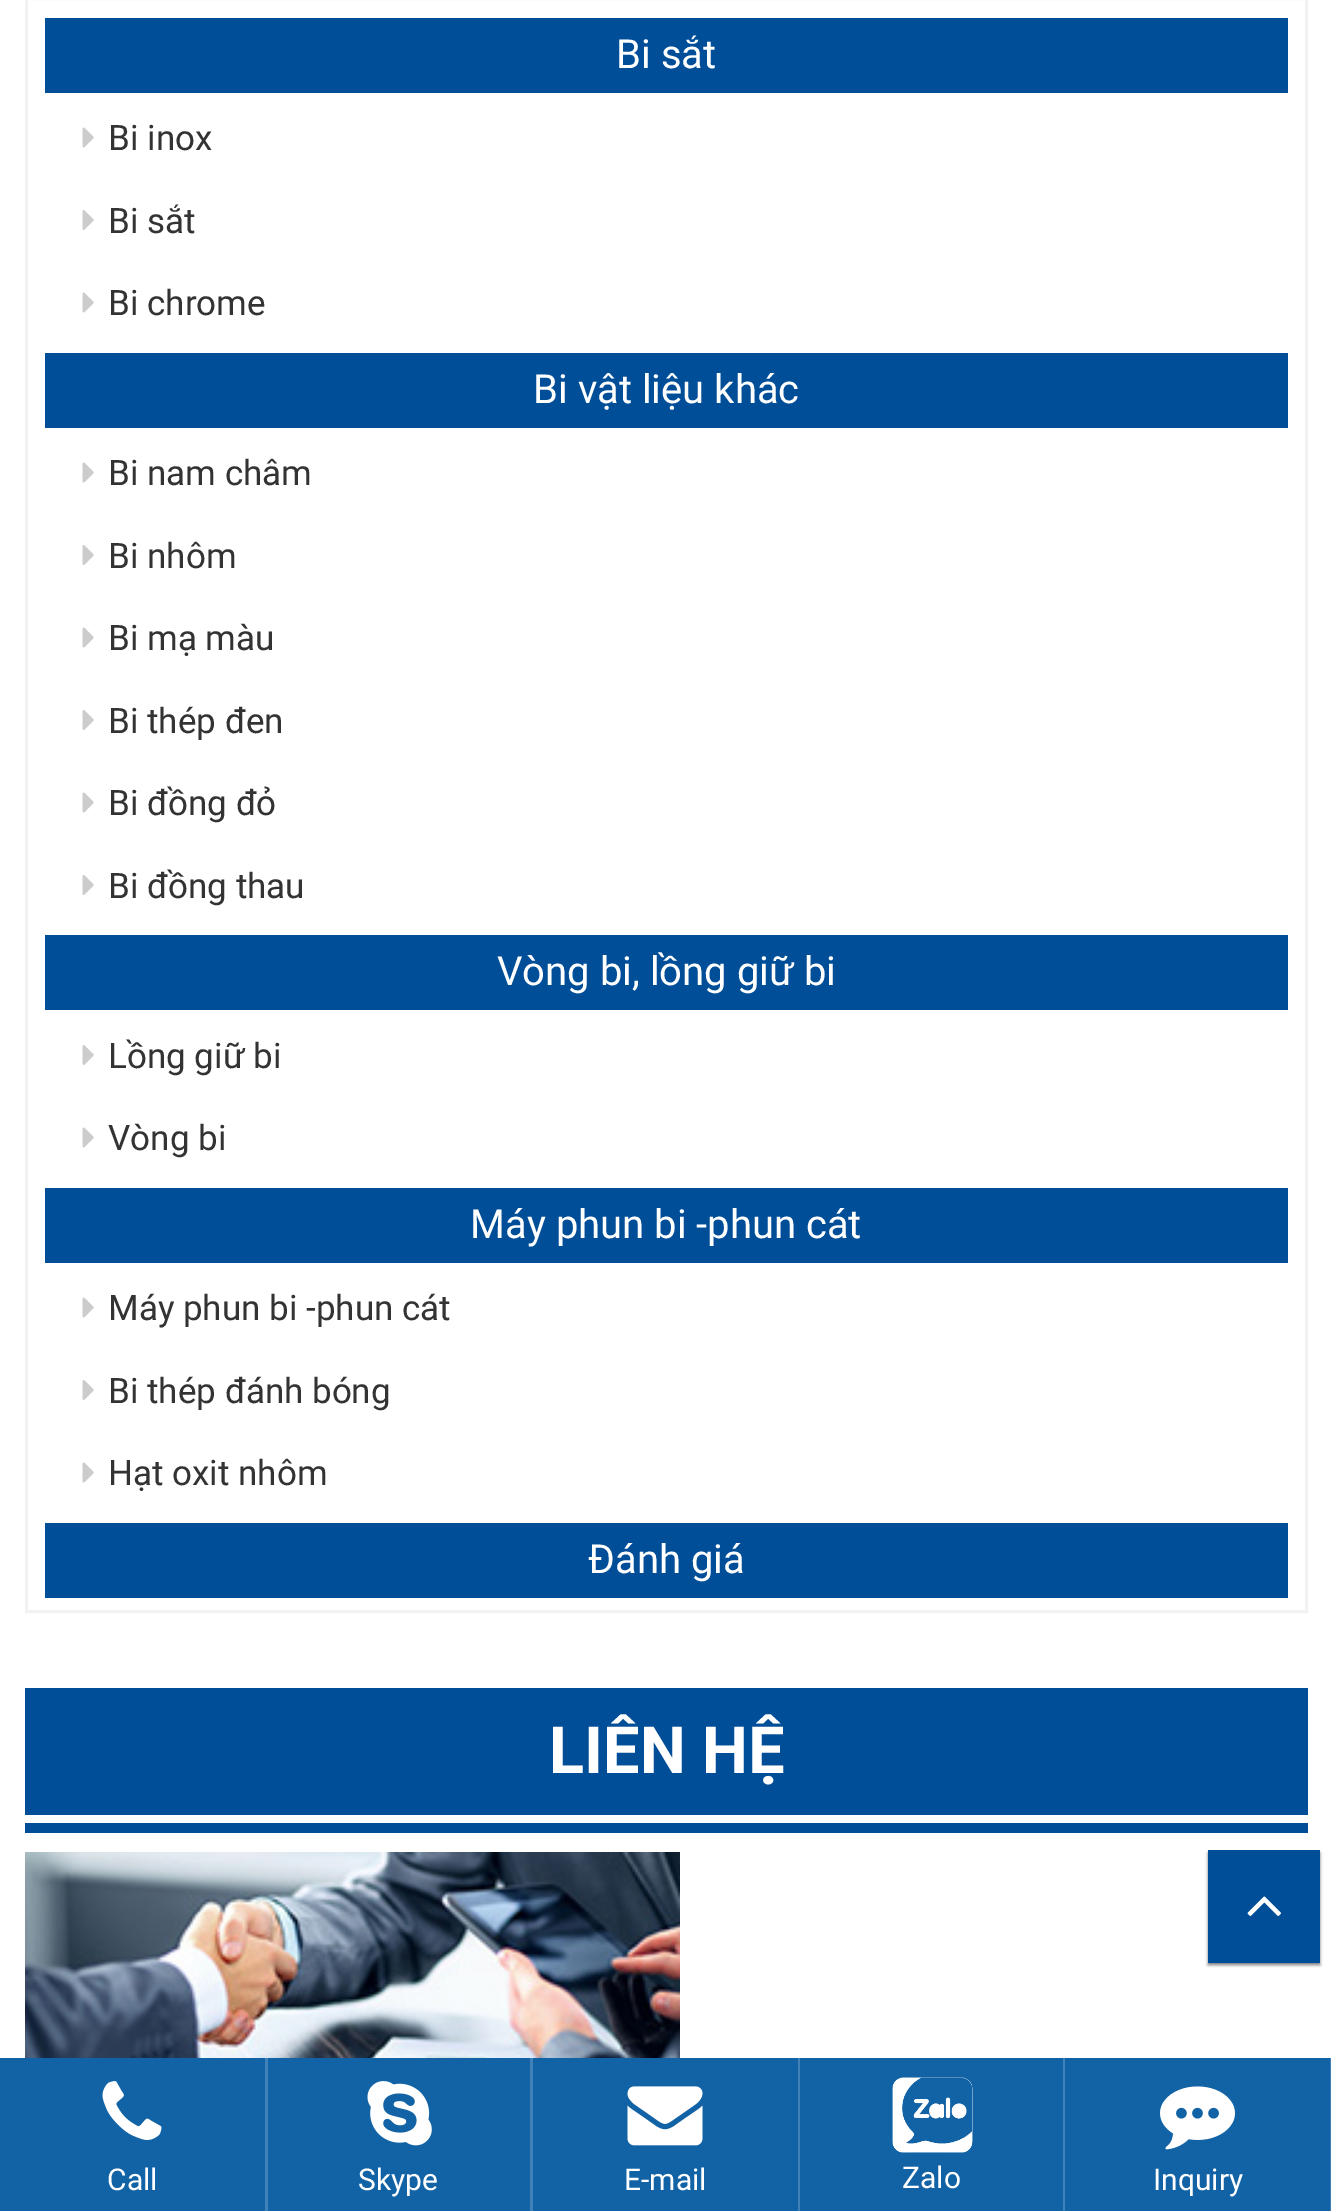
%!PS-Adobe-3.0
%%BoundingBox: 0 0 1331 2211
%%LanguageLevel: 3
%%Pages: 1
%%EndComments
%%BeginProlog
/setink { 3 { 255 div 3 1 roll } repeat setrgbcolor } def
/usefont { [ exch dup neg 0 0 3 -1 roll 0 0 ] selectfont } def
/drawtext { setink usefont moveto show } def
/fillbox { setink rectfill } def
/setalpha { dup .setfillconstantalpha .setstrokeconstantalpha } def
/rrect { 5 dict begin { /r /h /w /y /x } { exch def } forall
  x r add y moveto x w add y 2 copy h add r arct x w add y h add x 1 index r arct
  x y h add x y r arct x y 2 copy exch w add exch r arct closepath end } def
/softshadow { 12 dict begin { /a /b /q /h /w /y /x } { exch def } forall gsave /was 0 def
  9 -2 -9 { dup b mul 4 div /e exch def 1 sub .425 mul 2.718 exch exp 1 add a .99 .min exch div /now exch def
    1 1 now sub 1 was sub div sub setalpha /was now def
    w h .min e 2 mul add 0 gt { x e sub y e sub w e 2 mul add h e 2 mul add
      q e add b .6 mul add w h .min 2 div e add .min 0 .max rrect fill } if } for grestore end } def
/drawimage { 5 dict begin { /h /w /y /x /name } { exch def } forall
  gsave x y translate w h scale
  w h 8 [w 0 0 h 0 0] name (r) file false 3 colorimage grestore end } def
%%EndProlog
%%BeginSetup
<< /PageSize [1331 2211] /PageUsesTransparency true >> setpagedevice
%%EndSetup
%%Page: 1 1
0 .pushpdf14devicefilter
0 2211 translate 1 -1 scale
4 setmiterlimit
0 0 1331 2211 255 255 255 fillbox
242 242 242 setink
3 setlinewidth
26.5 -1.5 1280 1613 rectstroke
45 18 1243 75 0 77 152 fillbox
(Bi sắt) 616 68 /Roboto-Regular 40 255 255 255 drawtext
(assets/img1.rgb) 82 127 12 21 drawimage
(Bi inox) 108 150 /Roboto-Regular 35 51 51 51 drawtext
(assets/img2.rgb) 82 210 12 20 drawimage
(Bi sắt) 108 233 /Roboto-Regular 35 51 51 51 drawtext
(assets/img1.rgb) 82 292 12 21 drawimage
(Bi chrome) 108 315 /Roboto-Regular 35 51 51 51 drawtext
45 353 1243 75 0 77 152 fillbox
(Bi vật liệu khác) 533 403 /Roboto-Regular 40 255 255 255 drawtext
(assets/img1.rgb) 82 462 12 21 drawimage
(Bi nam châm) 108 485 /Roboto-Regular 35 51 51 51 drawtext
(assets/img2.rgb) 82 545 12 20 drawimage
(Bi nhôm) 108 568 /Roboto-Regular 35 51 51 51 drawtext
(assets/img1.rgb) 82 627 12 21 drawimage
(Bi mạ màu) 108 650 /Roboto-Regular 35 51 51 51 drawtext
(assets/img2.rgb) 82 710 12 20 drawimage
(Bi thép đen) 108 733 /Roboto-Regular 35 51 51 51 drawtext
(assets/img1.rgb) 82 792 12 21 drawimage
(Bi đồng đỏ) 108 815 /Roboto-Regular 35 51 51 51 drawtext
(assets/img2.rgb) 82 875 12 20 drawimage
(Bi đồng thau) 108 898 /Roboto-Regular 35 51 51 51 drawtext
45 935 1243 75 0 77 152 fillbox
(Vòng bi, lồng giữ bi) 497 985 /Roboto-Regular 40 255 255 255 drawtext
(assets/img2.rgb) 82 1045 12 20 drawimage
(Lồng giữ bi) 108 1068 /Roboto-Regular 35 51 51 51 drawtext
(assets/img1.rgb) 82 1127 12 21 drawimage
(Vòng bi) 108 1150 /Roboto-Regular 35 51 51 51 drawtext
45 1188 1243 75 0 77 152 fillbox
(Máy phun bi -phun cát) 470 1238 /Roboto-Regular 40 255 255 255 drawtext
(assets/img1.rgb) 82 1297 12 21 drawimage
(Máy phun bi -phun cát) 108 1320 /Roboto-Regular 35 51 51 51 drawtext
(assets/img2.rgb) 82 1380 12 20 drawimage
(Bi thép đánh bóng) 108 1403 /Roboto-Regular 35 51 51 51 drawtext
(assets/img1.rgb) 82 1462 12 21 drawimage
(Hạt oxit nhôm) 108 1485 /Roboto-Regular 35 51 51 51 drawtext
45 1523 1243 75 0 77 152 fillbox
(Đánh giá) 588 1573 /Roboto-Regular 40 255 255 255 drawtext
25 1688 1283 127 0 77 152 fillbox
(LIÊN HỆ) 549 1773 /Roboto-Bold 65 255 255 255 drawtext
25 1823 1283 10 0 77 152 fillbox
(assets/img3.rgb) 25 1852 655 206 drawimage
0 0 0 setink
1208 1853 112 112 0 1.5 0.5 softshadow
1208 1850 112 113 0 77 152 fillbox
(assets/img4.rgb) 1247 1896 34 20 drawimage
0 2058 798 153 18 99 165 fillbox
265 2058 3 153 64 129 183 fillbox
(assets/img5.rgb) 102 2081 60 59 drawimage
(Call) 107 2190 /Roboto-Regular 30 255 255 255 drawtext
530 2058 3 153 64 129 183 fillbox
(assets/img6.rgb) 367 2081 65 65 drawimage
(Skype) 358 2190 /Roboto-Regular 30 255 255 255 drawtext
798 2058 2 153 64 129 183 fillbox
(assets/img7.rgb) 627 2086 76 60 drawimage
(E-mail) 624 2190 /Roboto-Regular 30 255 255 255 drawtext
800 2058 263 153 18 99 165 fillbox
1063 2058 2 153 64 129 183 fillbox
(assets/img8.rgb) 892 2077 81 76 drawimage
(Zalo) 902 2188 /Roboto-Regular 30 255 255 255 drawtext
1065 2058 265 153 18 99 165 fillbox
1330 2058 1 153 64 129 183 fillbox
(assets/img9.rgb) 1160 2086 75 64 drawimage
(Inquiry) 1153 2190 /Roboto-Regular 30 255 255 255 drawtext
.poppdf14devicefilter showpage
%%EOF
